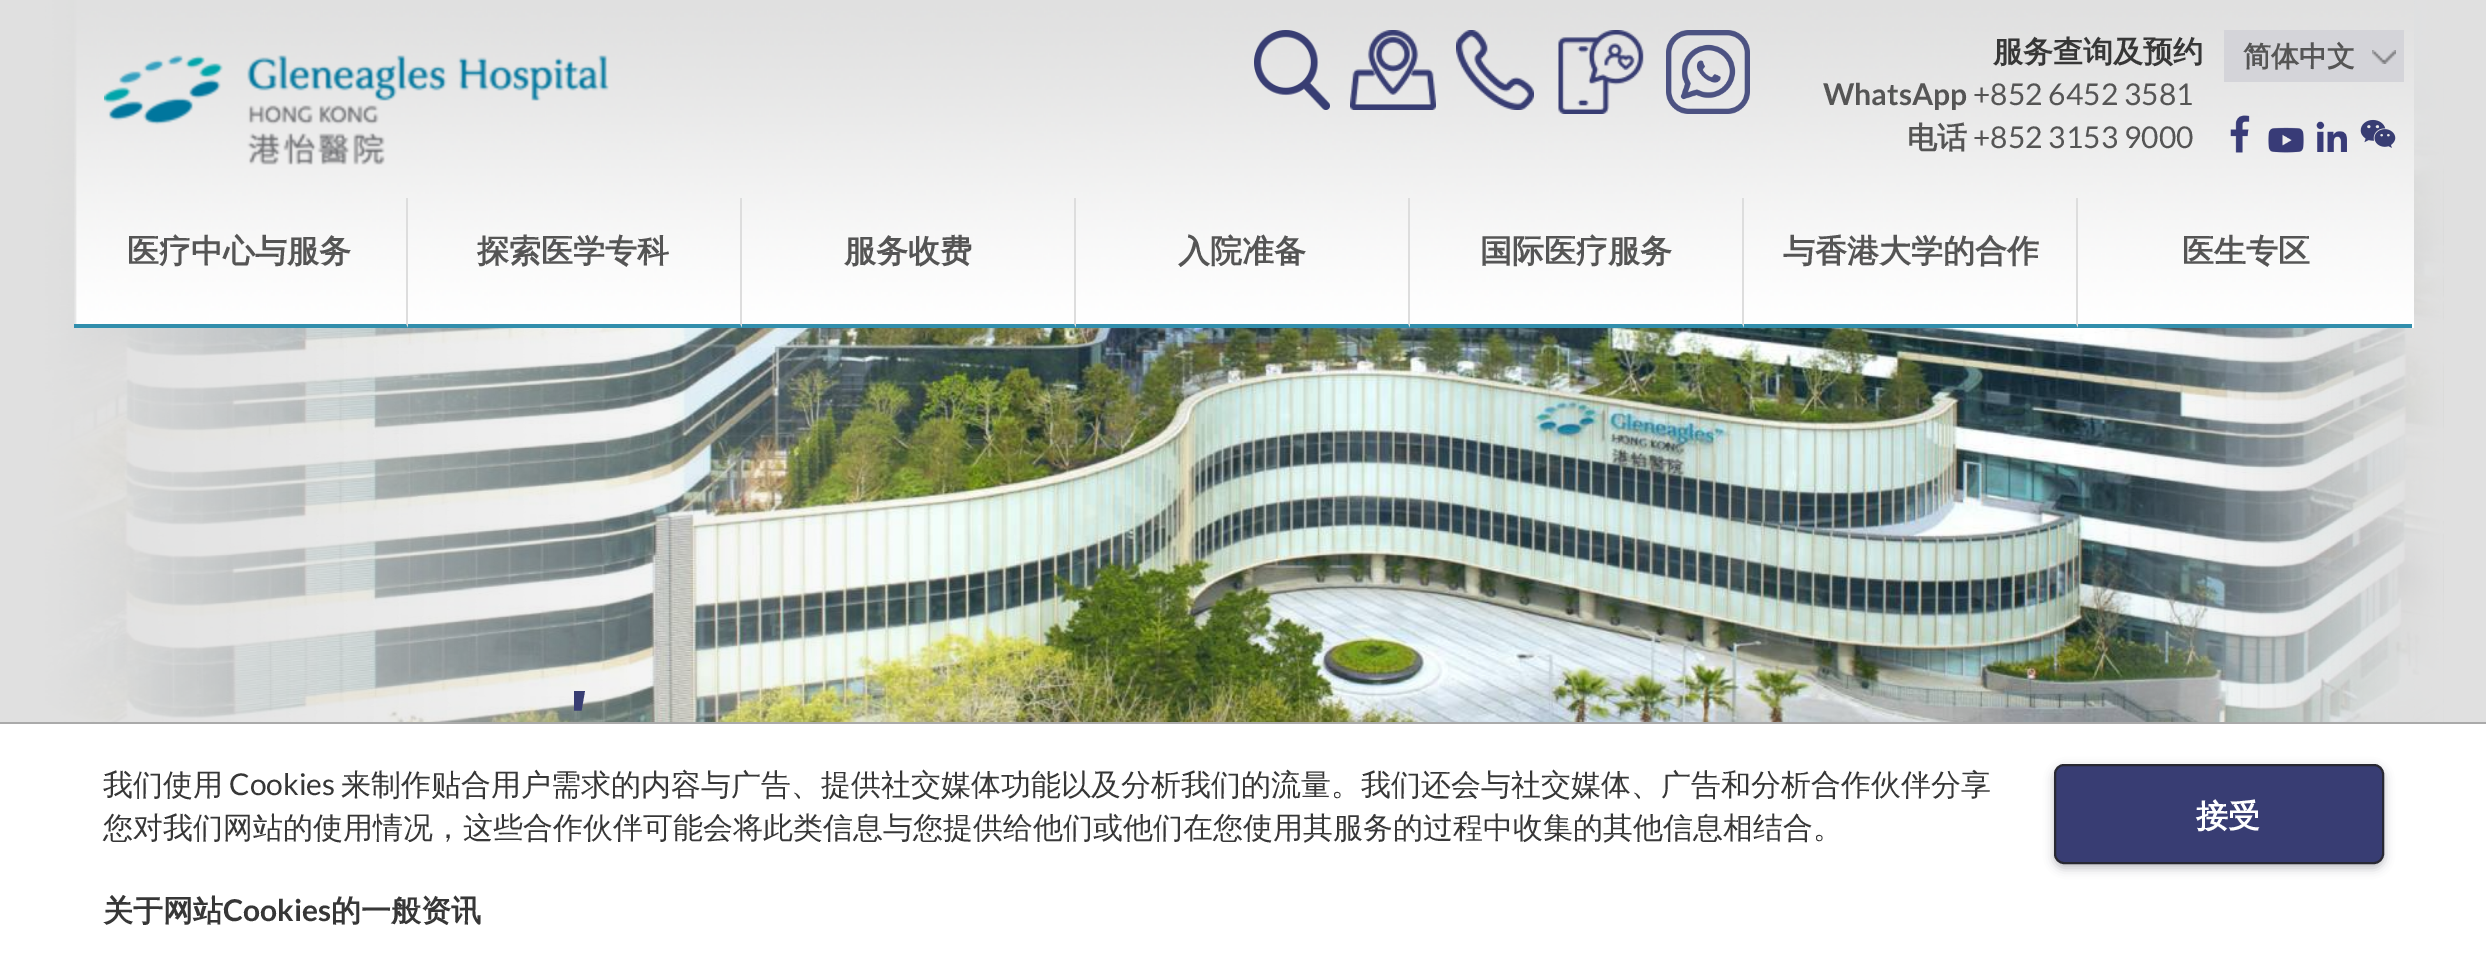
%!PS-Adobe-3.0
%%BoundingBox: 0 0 2486 972
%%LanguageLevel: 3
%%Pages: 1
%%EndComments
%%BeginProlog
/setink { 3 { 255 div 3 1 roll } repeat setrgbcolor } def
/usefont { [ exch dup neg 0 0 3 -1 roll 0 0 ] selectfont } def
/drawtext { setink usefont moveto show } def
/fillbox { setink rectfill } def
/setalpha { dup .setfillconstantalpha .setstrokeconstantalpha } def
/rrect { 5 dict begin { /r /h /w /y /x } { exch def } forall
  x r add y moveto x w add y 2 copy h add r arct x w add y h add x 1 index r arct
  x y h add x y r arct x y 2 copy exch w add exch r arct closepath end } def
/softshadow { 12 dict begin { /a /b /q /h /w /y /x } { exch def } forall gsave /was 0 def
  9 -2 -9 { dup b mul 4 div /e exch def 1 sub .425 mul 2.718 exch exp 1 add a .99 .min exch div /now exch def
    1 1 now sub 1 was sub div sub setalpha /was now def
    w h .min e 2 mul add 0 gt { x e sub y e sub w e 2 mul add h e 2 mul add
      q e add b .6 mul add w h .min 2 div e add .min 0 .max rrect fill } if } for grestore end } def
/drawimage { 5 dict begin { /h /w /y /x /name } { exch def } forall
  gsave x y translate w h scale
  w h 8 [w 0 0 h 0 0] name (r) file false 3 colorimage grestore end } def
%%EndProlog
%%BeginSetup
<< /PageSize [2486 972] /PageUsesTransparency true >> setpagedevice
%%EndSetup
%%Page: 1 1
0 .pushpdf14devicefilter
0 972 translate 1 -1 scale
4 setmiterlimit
0 0 2486 972 224 224 224 fillbox
(assets/img14.rgb) 52 0 2392 722 drawimage
(assets/img13.rgb) 44 0 925 722 drawimage
(assets/img15.rgb) 2095 0 349 722 drawimage
(assets/img1.rgb) 74 0 2340 328 drawimage
(assets/img2.rgb) 104 55 505 110 drawimage
(assets/img3.rgb) 1254 30 76 80 drawimage
(assets/img4.rgb) 1350 30 86 80 drawimage
(assets/img5.rgb) 1456 30 78 80 drawimage
(assets/img6.rgb) 1558 30 86 84 drawimage
(assets/img7.rgb) 1666 30 84 84 drawimage
(服务查询及预约) 1993 62 /WenQuanYiZenHei-Bold 30 55 55 55 drawtext
(WhatsApp) 1823 105 /Lato-Bold 30 85 85 85 drawtext
(+852 6452 3581) 1973 105 /Lato-Regular 30 85 85 85 drawtext
(电话) 1907 148 /WenQuanYiZenHei-Bold 30 85 85 85 drawtext
(+852 3153 9000) 1973 148 /Lato-Regular 30 85 85 85 drawtext
2224 30 180 52 212 212 217 fillbox
(assets/img8.rgb) 2372 50 24 14 drawimage
(简体中文) 2243 66 /WenQuanYiZenHei-Bold 28 85 85 85 drawtext
(assets/img9.rgb) 2230 115 20 38 drawimage
(assets/img10.rgb) 2268 127 36 26 drawimage
(assets/img11.rgb) 2316 121 31 31 drawimage
(assets/img12.rgb) 2360 119 36 29 drawimage
221 221 221 setink
408 198 moveto 408 328 lineto 406 324 lineto 406 198 lineto closepath fill
49 142 172 setink
408 328 moveto 74 328 lineto 74 324 lineto 406 324 lineto closepath fill
(医疗中心与服务) 127 262 /WenQuanYiZenHei-Bold 32 85 85 85 drawtext
221 221 221 setink
742 198 moveto 742 328 lineto 740 324 lineto 740 198 lineto closepath fill
49 142 172 setink
742 328 moveto 408 328 lineto 408 324 lineto 740 324 lineto closepath fill
(探索医学专科) 477 262 /WenQuanYiZenHei-Bold 32 85 85 85 drawtext
221 221 221 setink
1076 198 moveto 1076 328 lineto 1074 324 lineto 1074 198 lineto closepath fill
49 142 172 setink
1076 328 moveto 742 328 lineto 742 324 lineto 1074 324 lineto closepath fill
(服务收费) 844 262 /WenQuanYiZenHei-Bold 32 85 85 85 drawtext
221 221 221 setink
1410 198 moveto 1410 328 lineto 1408 324 lineto 1408 198 lineto closepath fill
49 142 172 setink
1410 328 moveto 1076 328 lineto 1076 324 lineto 1408 324 lineto closepath fill
(入院准备) 1178 262 /WenQuanYiZenHei-Bold 32 85 85 85 drawtext
221 221 221 setink
1744 198 moveto 1744 328 lineto 1742 324 lineto 1742 198 lineto closepath fill
49 142 172 setink
1744 328 moveto 1410 328 lineto 1410 324 lineto 1742 324 lineto closepath fill
(国际医疗服务) 1480 262 /WenQuanYiZenHei-Bold 32 85 85 85 drawtext
221 221 221 setink
2078 198 moveto 2078 328 lineto 2076 324 lineto 2076 198 lineto closepath fill
49 142 172 setink
2078 328 moveto 1744 328 lineto 1744 324 lineto 2076 324 lineto closepath fill
(与香港大学的合作) 1783 262 /WenQuanYiZenHei-Bold 32 85 85 85 drawtext
2078 324 334 4 49 142 172 fillbox
(医生专区) 2182 262 /WenQuanYiZenHei-Bold 32 85 85 85 drawtext
(') 565 754 /PTSansCaption-Bold 90 56 61 115 drawtext
0 724 2486 248 255 255 255 fillbox
0 722 2486 2 170 170 170 fillbox
(我们使用) 103 795 /WenQuanYiZenHei-Medium 30 55 55 55 drawtext
(Cookies) 229 795 /Lato-Regular 30 55 55 55 drawtext
(来制作贴合用户需求的内容与广告、提供社交媒体功能以及分析我们的流量。我们还会与社交媒体、广告和分析合作伙伴分享) 341 795 /WenQuanYiZenHei-Medium 30 55 55 55 drawtext
(您对我们网站的使用情况，这些合作伙伴可能会将此类信息与您提供给他们或他们在您使用其服务的过程中收集的其他信息相结合。) 103 838 /WenQuanYiZenHei-Medium 30 55 55 55 drawtext
(关于网站) 103 921 /WenQuanYiZenHei-Bold 30 55 55 55 drawtext
(Cookies) 223 921 /Lato-Bold 30 55 55 55 drawtext
(的一般资讯) 331 921 /WenQuanYiZenHei-Bold 30 55 55 55 drawtext
40 40 50 setink
2054 768 330 100 10 5 0.3 softshadow
56 61 115 setink
2055 765 328 98 9 rrect gsave fill grestore
40 40 50 setink
2 setlinewidth
stroke
(接受) 2196 827 /WenQuanYiZenHei-Bold 32 255 255 255 drawtext
.poppdf14devicefilter showpage
%%EOF
